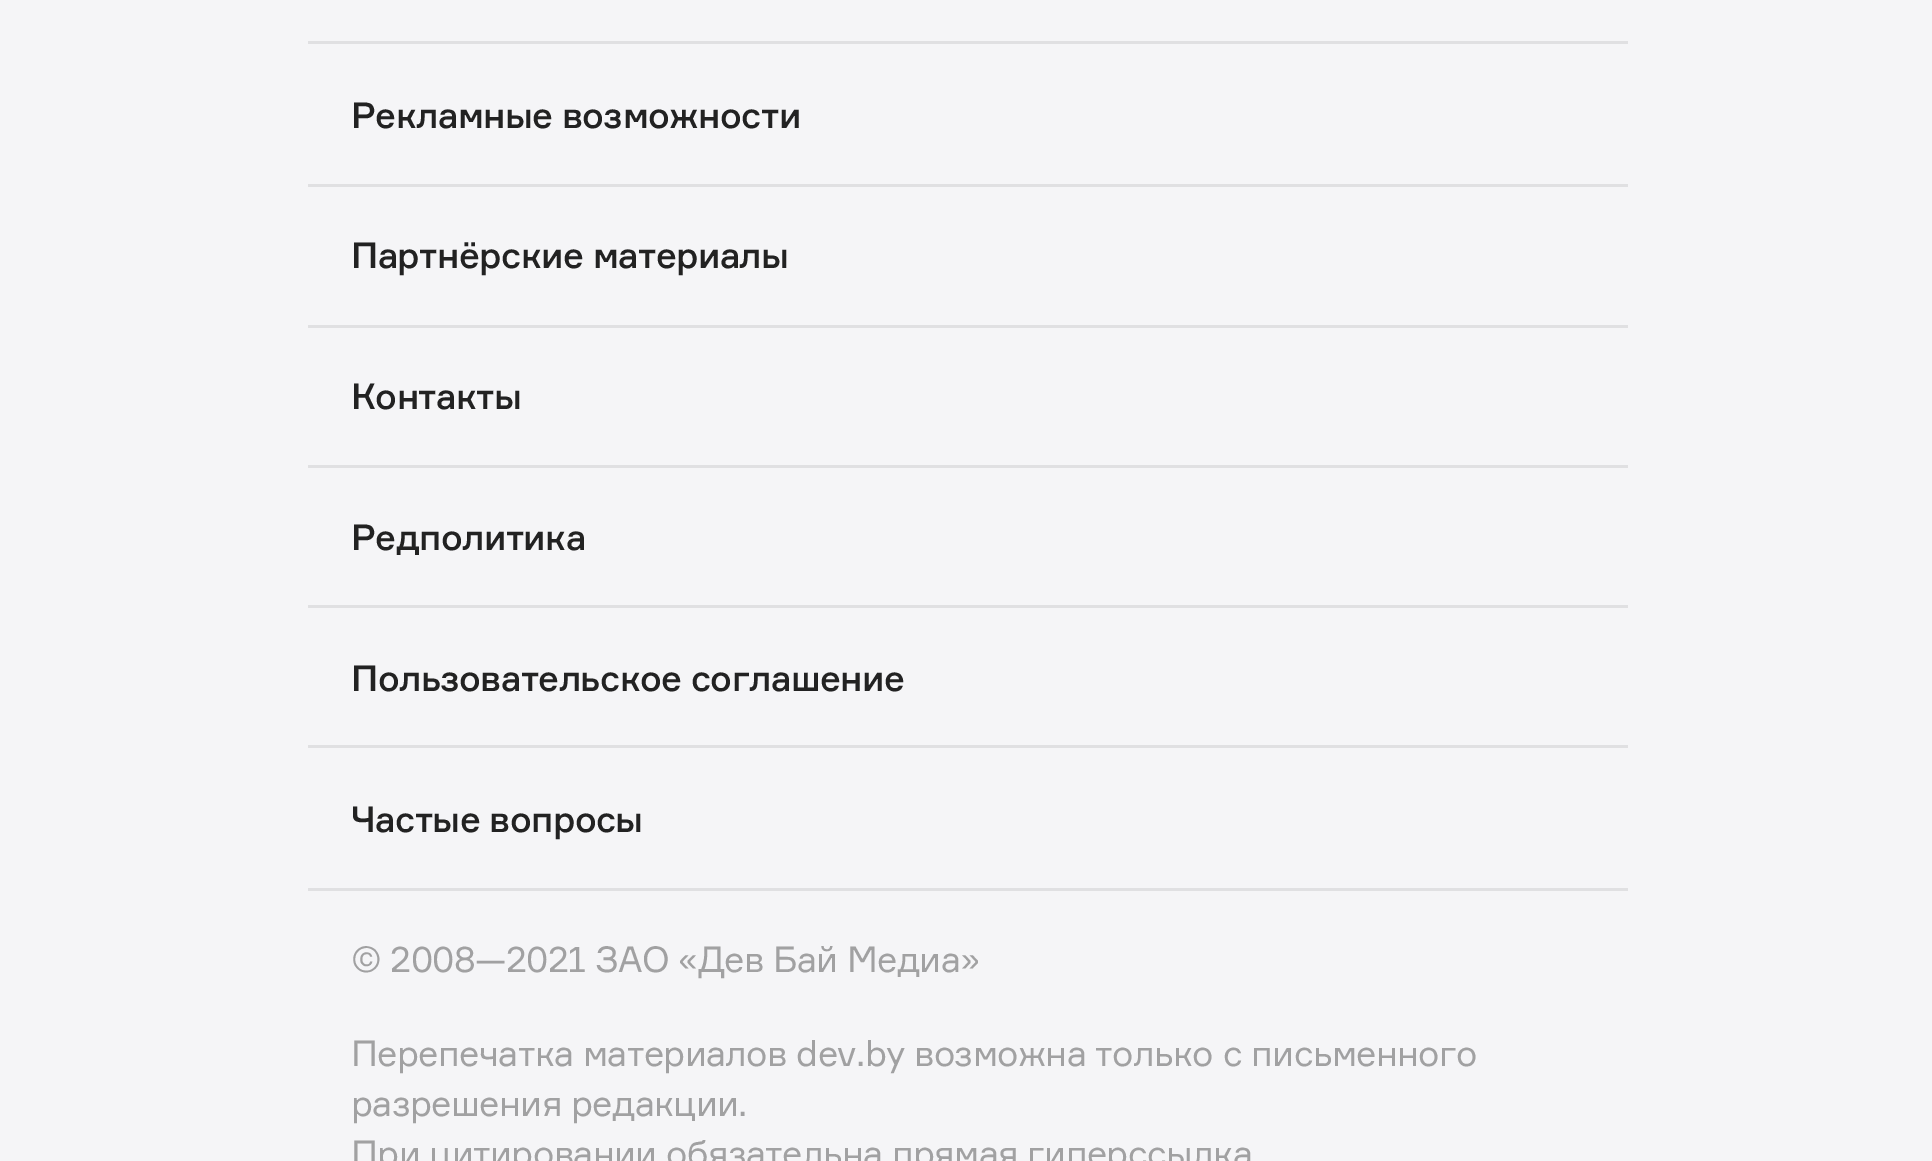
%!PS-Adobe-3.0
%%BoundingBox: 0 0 1932 1161
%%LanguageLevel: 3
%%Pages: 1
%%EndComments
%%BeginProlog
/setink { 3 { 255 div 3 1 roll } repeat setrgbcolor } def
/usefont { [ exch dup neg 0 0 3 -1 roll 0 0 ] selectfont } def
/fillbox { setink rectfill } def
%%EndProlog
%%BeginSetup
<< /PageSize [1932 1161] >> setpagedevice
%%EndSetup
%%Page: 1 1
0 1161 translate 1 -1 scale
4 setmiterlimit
0 0 1932 1161 245 245 247 fillbox
308 41 1320 3 224 224 226 fillbox
308 184 1320 3 224 224 226 fillbox
/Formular-Medium 35.75 usefont
34 34 34 setink
351 128 moveto -0.62 0 (Рекламные возможности) ashow
308 325 1320 3 224 224 226 fillbox
34 34 34 setink
351 268 moveto -0.62 0 (Партнёрские материалы) ashow
308 465 1320 3 224 224 226 fillbox
34 34 34 setink
351 409 moveto -0.62 0 (Контакты) ashow
308 605 1320 3 224 224 226 fillbox
34 34 34 setink
351 550 moveto -0.62 0 (Редполитика) ashow
308 745 1320 3 224 224 226 fillbox
34 34 34 setink
351 691 moveto -0.62 0 (Пользовательское соглашение) ashow
308 888 1320 3 224 224 226 fillbox
34 34 34 setink
351 832 moveto -0.62 0 (Частые вопросы) ashow
/Formular-Regular 35.75 usefont
161 161 162 setink
351 972 moveto -0.62 0 (© 2008—2021 ЗАО «Дев Бай Медиа») ashow
351 1066 moveto -0.62 0 (Перепечатка материалов dev.by возможна только с письменного) ashow
351 1116 moveto -0.62 0 (разрешения редакции.) ashow
351 1166 moveto -0.62 0 (При цитировании обязательна прямая гиперссылка) ashow
showpage
%%EOF
